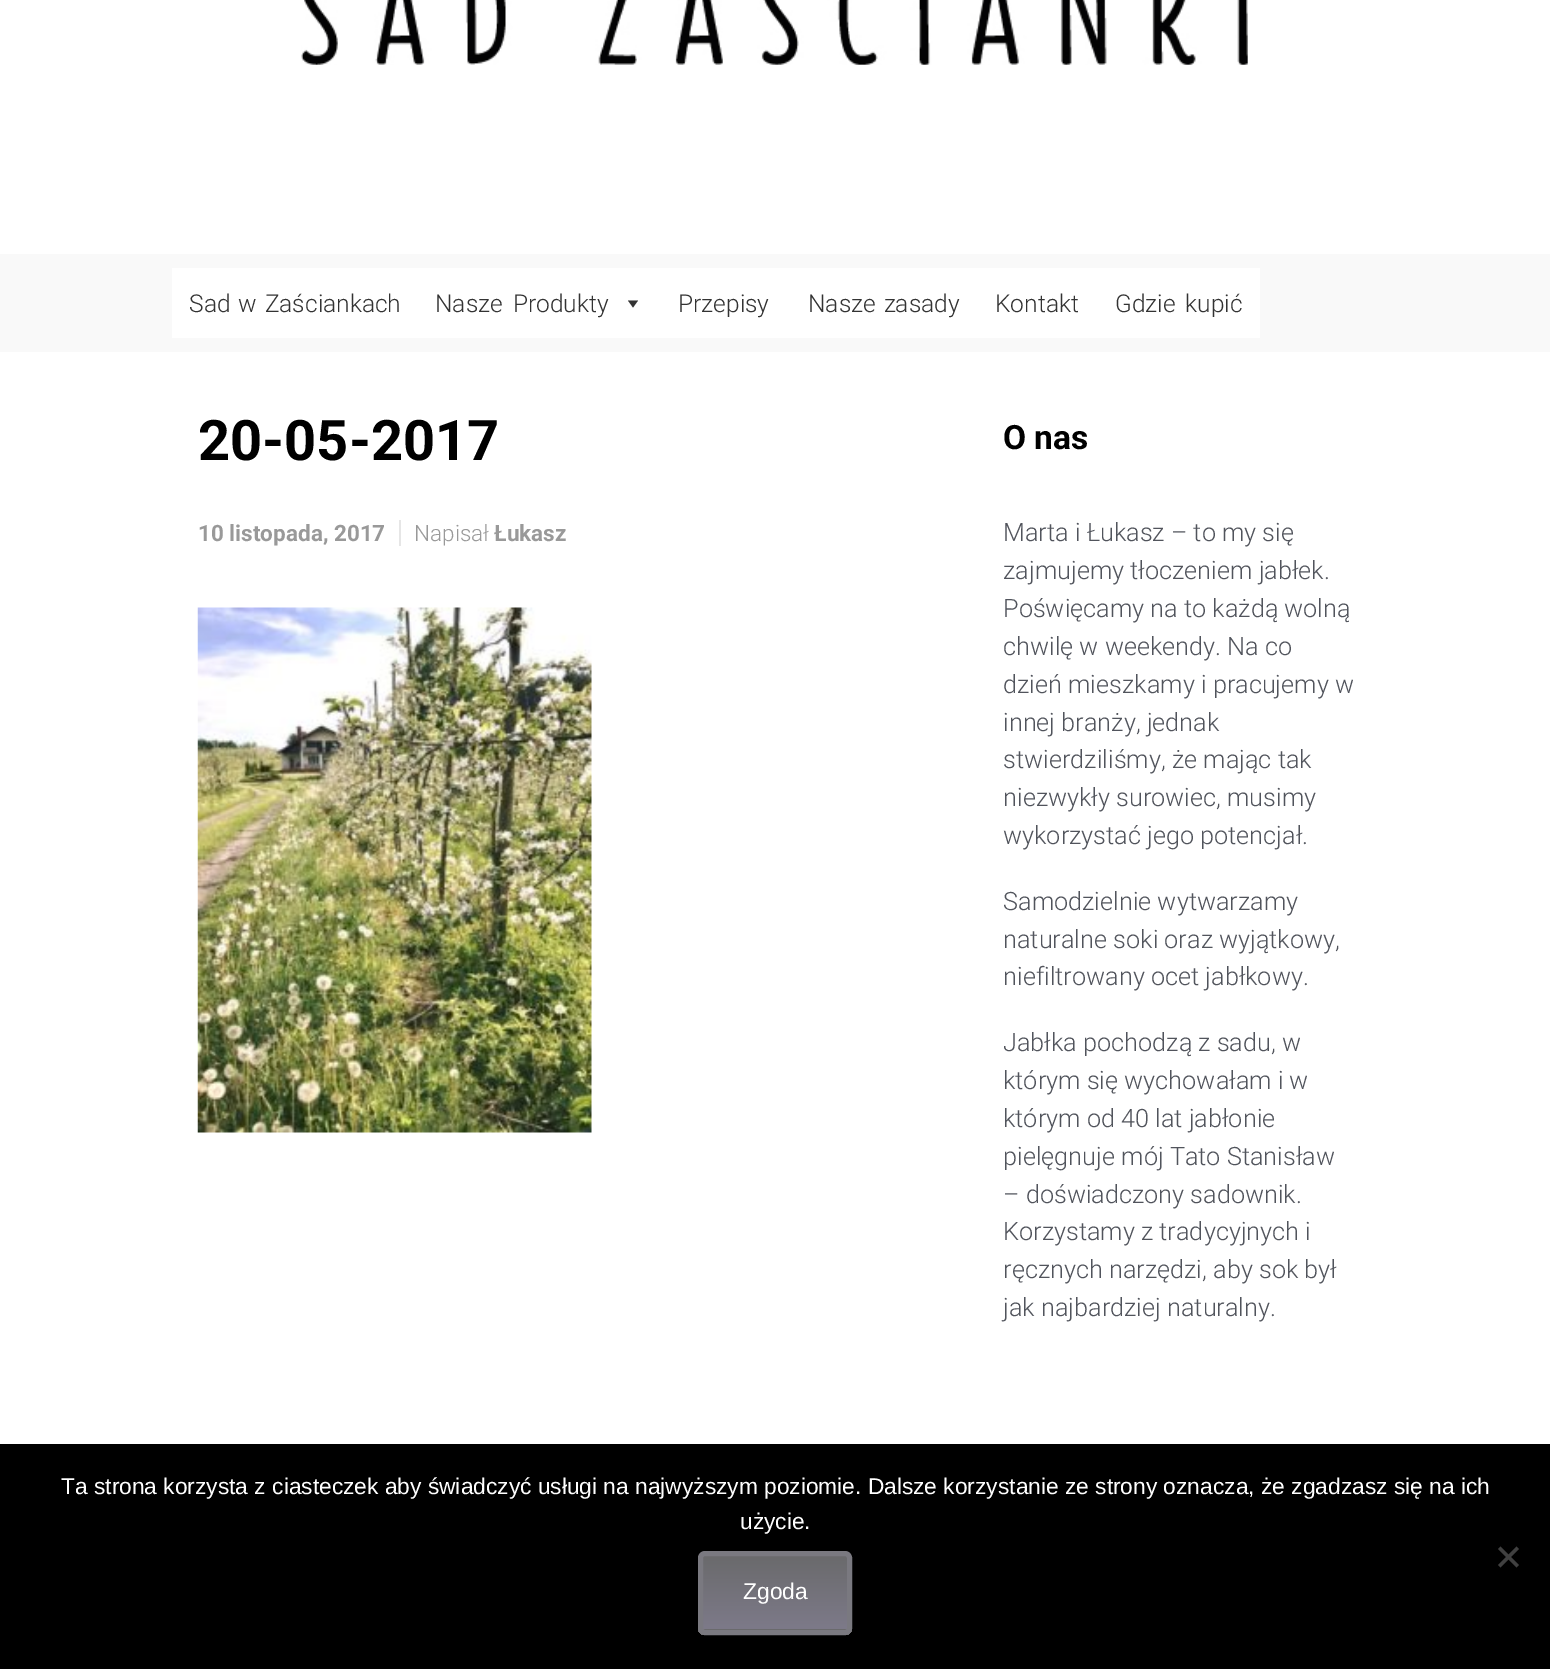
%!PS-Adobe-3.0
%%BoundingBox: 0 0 1550 1669
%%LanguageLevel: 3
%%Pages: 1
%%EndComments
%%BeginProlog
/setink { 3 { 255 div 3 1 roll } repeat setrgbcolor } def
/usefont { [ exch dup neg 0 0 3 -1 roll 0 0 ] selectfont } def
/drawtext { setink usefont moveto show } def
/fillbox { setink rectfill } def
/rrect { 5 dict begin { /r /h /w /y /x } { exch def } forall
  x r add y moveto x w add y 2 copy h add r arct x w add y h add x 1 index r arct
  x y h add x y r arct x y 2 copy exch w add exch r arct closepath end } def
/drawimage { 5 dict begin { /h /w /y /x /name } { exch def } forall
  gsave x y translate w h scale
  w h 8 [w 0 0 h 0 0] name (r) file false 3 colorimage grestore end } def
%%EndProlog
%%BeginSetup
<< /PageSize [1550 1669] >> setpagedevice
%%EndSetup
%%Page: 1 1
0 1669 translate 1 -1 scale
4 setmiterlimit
0 0 1550 1669 249 249 249 fillbox
0 0 1550 254 255 255 255 fillbox
(assets/img1.rgb) 301 0 947 65 drawimage
172 268 1088 70 255 255 255 fillbox
/Roboto-Light 24.5 usefont
51 51 51 setink
189 312 moveto 2 0 32 (Sad w Zaściankach) widthshow
435 312 moveto 4 0 32 (Nasze Produkty) widthshow
638 300.5 moveto 633 307.5 lineto 628 300.5 lineto closepath fill
(Przepisy) 678 312 /Roboto-Light 24.5 51 51 51 drawtext
808 312 moveto 2 0 32 (Nasze zasady) widthshow
(Kontakt) 995 312 /Roboto-Light 24.5 51 51 51 drawtext
1115 312 moveto 4 0 32 (Gdzie kupić) widthshow
0 352 1550 1092 255 255 255 fillbox
(20-05-2017) 198 460 /Roboto-Bold 56 0 0 0 drawtext
(10 listopada, 2017) 198 541 /Roboto-Bold 22.5 153 153 153 drawtext
399 520 2 26 230 230 230 fillbox
(Napisał) 414 541 /Roboto-Light 22.5 153 153 153 drawtext
(Łukasz) 494 541 /Roboto-Bold 22.5 153 153 153 drawtext
(assets/img2.rgb) 197 607 395 526 drawimage
(O nas) 1003 449 /Roboto-Bold 33.5 0 0 0 drawtext
(Marta i Łukasz – to my się) 1003 541 /Roboto-Light 25.25 81 84 92 drawtext
(zajmujemy tłoczeniem jabłek.) 1003 579 /Roboto-Light 25.25 81 84 92 drawtext
(Poświęcamy na to każdą wolną) 1003 617 /Roboto-Light 25.25 81 84 92 drawtext
(chwilę w weekendy. Na co) 1003 655 /Roboto-Light 25.25 81 84 92 drawtext
(dzień mieszkamy i pracujemy w) 1003 693 /Roboto-Light 25.25 81 84 92 drawtext
(innej branży, jednak) 1003 731 /Roboto-Light 25.25 81 84 92 drawtext
(stwierdziliśmy, że mając tak) 1003 768 /Roboto-Light 25.25 81 84 92 drawtext
(niezwykły surowiec, musimy) 1003 806 /Roboto-Light 25.25 81 84 92 drawtext
(wykorzystać jego potencjał.) 1003 844 /Roboto-Light 25.25 81 84 92 drawtext
(Samodzielnie wytwarzamy) 1003 910 /Roboto-Light 25.25 81 84 92 drawtext
(naturalne soki oraz wyjątkowy,) 1003 948 /Roboto-Light 25.25 81 84 92 drawtext
(niefiltrowany ocet jabłkowy.) 1003 985 /Roboto-Light 25.25 81 84 92 drawtext
(Jabłka pochodzą z sadu, w) 1003 1051 /Roboto-Light 25.25 81 84 92 drawtext
(którym się wychowałam i w) 1003 1089 /Roboto-Light 25.25 81 84 92 drawtext
(którym od 40 lat jabłonie) 1003 1127 /Roboto-Light 25.25 81 84 92 drawtext
(pielęgnuje mój Tato Stanisław) 1003 1165 /Roboto-Light 25.25 81 84 92 drawtext
(– doświadczony sadownik.) 1003 1203 /Roboto-Light 25.25 81 84 92 drawtext
(Korzystamy z tradycyjnych i) 1003 1240 /Roboto-Light 25.25 81 84 92 drawtext
(ręcznych narzędzi, aby sok był) 1003 1278 /Roboto-Light 25.25 81 84 92 drawtext
(jak najbardziej naturalny.) 1003 1316 /Roboto-Light 25.25 81 84 92 drawtext
0 1444 1550 225 0 0 0 fillbox
(Ta strona korzysta z ciasteczek aby świadczyć usługi na najwyższym poziomie. Dalsze korzystanie ze strony oznacza, że zgadzasz się na ich) 61 1494 /LiberationSans-Regular 22.75 255 255 255 drawtext
(użycie.) 740 1529 /LiberationSans-Regular 22.75 255 255 255 drawtext
64 64 64 setink
1516.5 1546.5 moveto 1519 1549 lineto 1500.5 1567.5 lineto 1498 1565 lineto closepath fill
1498 1549 moveto 1500.5 1546.5 lineto 1519 1565 lineto 1516.5 1567.5 lineto closepath fill
gsave 698 1556 moveto 852 1556 lineto 852 1629 lineto 698 1629 lineto closepath clip newpath
<< /ShadingType 2 /ColorSpace /DeviceRGB /Coords [775 1629 775 1556] /Extend [true true] /Function << /FunctionType 2 /Domain [0 1] /C0 [0.49 0.478 0.537] /C1 [0.416 0.416 0.424] /N 1 >> >> shfill grestore
gsave
698 1551 154 84 7 rrect clip newpath
gsave 698 1629 moveto 852 1629 lineto 852 1635 lineto 698 1635 lineto closepath clip newpath
<< /ShadingType 2 /ColorSpace /DeviceRGB /Coords [775 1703 775 1629] /Extend [true true] /Function << /FunctionType 2 /Domain [0 1] /C0 [0.49 0.478 0.537] /C1 [0.416 0.416 0.424] /N 1 >> >> shfill grestore
grestore
122 121 128 setink
5 setlinewidth
700.5 1553.5 149 79 4.5 rrect stroke
(Zgoda) 743 1599 /LiberationSans-Regular 22.75 255 255 255 drawtext
showpage
%%EOF
